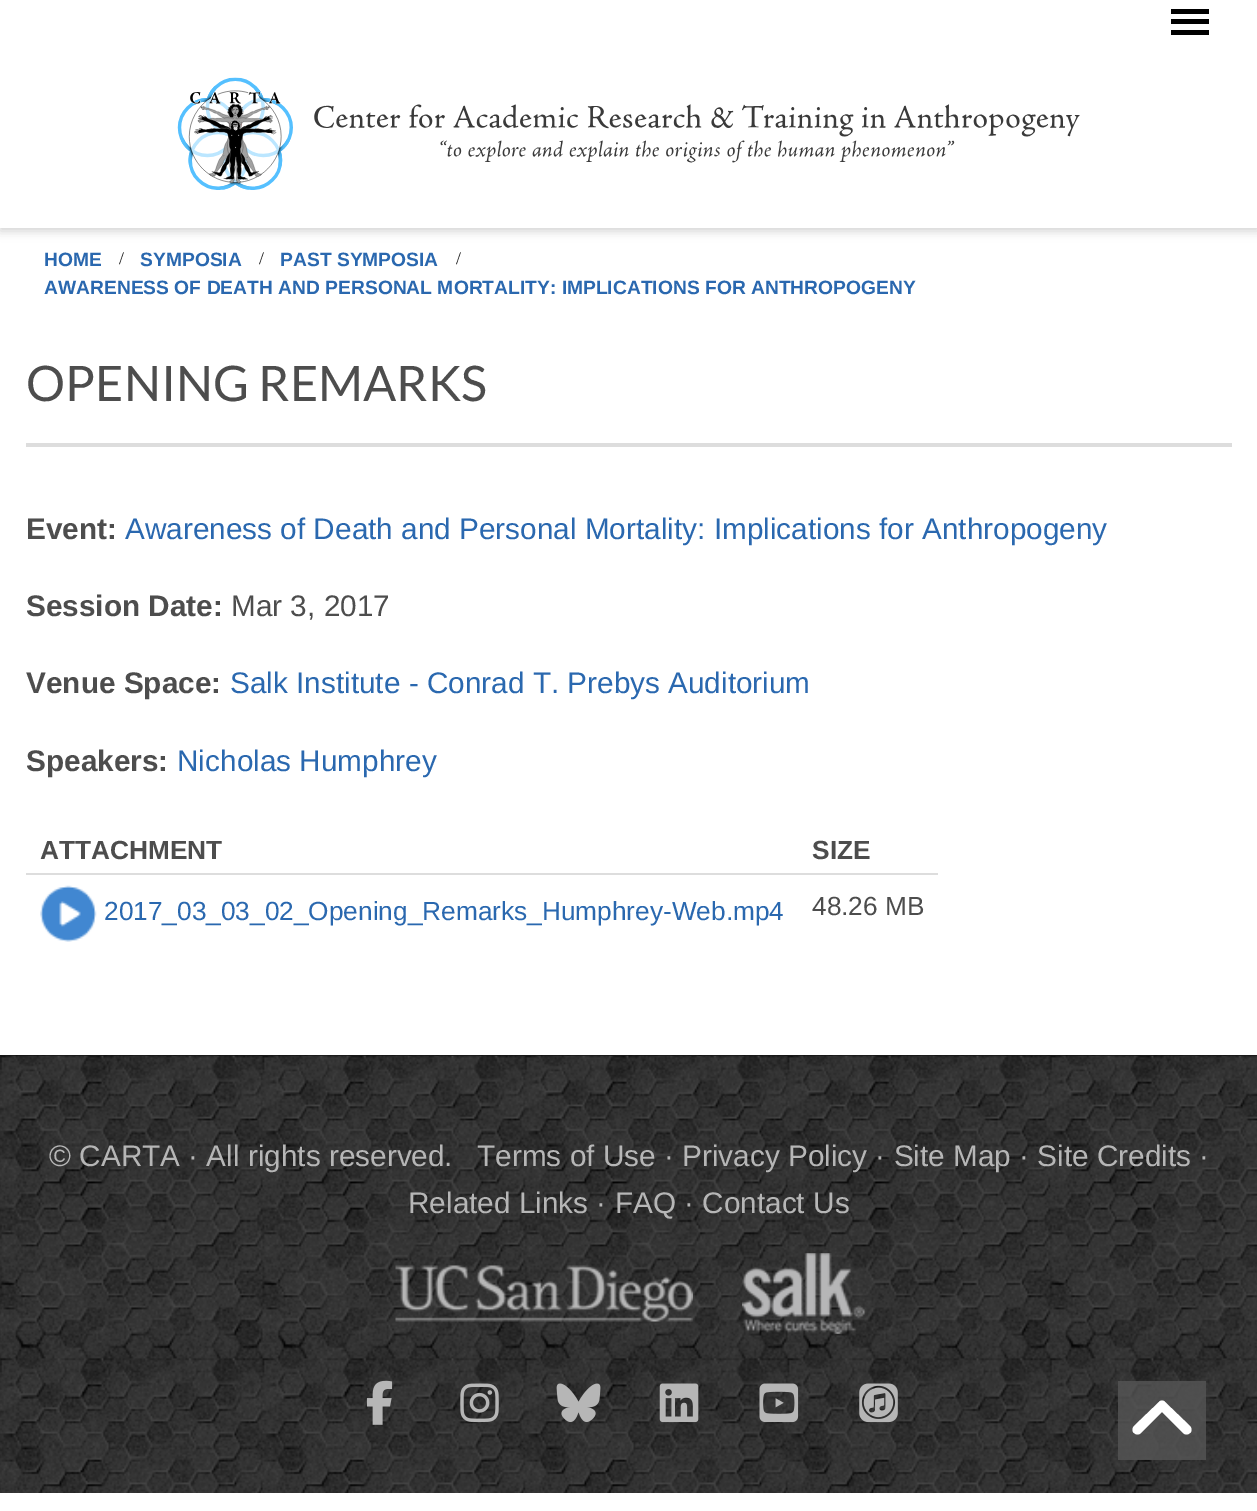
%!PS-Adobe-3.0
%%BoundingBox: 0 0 1257 1511
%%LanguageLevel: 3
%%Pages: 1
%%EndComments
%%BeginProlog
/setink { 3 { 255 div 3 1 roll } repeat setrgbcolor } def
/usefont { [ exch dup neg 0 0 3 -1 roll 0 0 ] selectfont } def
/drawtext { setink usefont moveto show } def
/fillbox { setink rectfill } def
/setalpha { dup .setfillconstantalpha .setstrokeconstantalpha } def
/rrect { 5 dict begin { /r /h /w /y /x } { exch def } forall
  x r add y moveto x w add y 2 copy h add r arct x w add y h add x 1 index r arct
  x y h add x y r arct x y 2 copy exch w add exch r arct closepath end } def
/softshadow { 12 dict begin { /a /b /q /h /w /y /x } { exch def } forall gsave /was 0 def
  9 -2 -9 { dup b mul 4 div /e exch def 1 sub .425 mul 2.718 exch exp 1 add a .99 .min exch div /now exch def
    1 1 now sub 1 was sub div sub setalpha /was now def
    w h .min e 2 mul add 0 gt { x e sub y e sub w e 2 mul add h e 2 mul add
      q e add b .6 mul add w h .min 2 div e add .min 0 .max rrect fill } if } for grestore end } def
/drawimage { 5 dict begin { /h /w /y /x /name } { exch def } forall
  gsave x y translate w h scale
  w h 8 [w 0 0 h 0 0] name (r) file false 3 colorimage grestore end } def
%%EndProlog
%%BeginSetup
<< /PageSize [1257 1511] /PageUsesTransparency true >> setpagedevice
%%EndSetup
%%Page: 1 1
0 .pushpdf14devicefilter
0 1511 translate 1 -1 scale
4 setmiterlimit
0 0 1257 1511 255 255 255 fillbox
100 100 100 setink
0 -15 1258 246 0 5 0.3 softshadow
0 0 1257 228 255 255 255 fillbox
1171 9 38 5 0 0 0 fillbox
1171 19 38 5 0 0 0 fillbox
1171 30 38 5 0 0 0 fillbox
(assets/img1.rgb) 177 77 903 113 drawimage
(HOME) 44 266 /LiberationSans-Bold 19.25 42 104 175 drawtext
(/) 119 264 /LiberationSerif-Regular 18 30 30 30 drawtext
(SYMPOSIA) 140 266 /LiberationSans-Bold 19.25 42 104 175 drawtext
(/) 259 264 /LiberationSerif-Regular 18 30 30 30 drawtext
(PAST SYMPOSIA) 280 266 /LiberationSans-Bold 19.25 42 104 175 drawtext
(/) 456 264 /LiberationSerif-Regular 18 30 30 30 drawtext
(AWARENESS OF DEATH AND PERSONAL MORTALITY: IMPLICATIONS FOR ANTHROPOGENY) 44 294 /LiberationSans-Bold 19.25 42 104 175 drawtext
(OPENING REMARKS) 26 401 /Lato-Regular 49 77 77 77 drawtext
26 443 1206 4 221 221 221 fillbox
(Event:) 26 539 /LiberationSans-Bold 29.75 77 77 77 drawtext
(Awareness of Death and Personal Mortality: Implications for Anthropogeny) 125 539 /LiberationSans-Regular 29.75 42 104 175 drawtext
(Session Date:) 26 616 /LiberationSans-Bold 29.75 77 77 77 drawtext
(Mar 3, 2017) 231 616 /LiberationSans-Regular 29.75 77 77 77 drawtext
(Venue Space:) 26 693 /LiberationSans-Bold 29.75 77 77 77 drawtext
(Salk Institute - Conrad T. Prebys Auditorium) 230 693 /LiberationSans-Regular 29.75 42 104 175 drawtext
(Speakers:) 26 771 /LiberationSans-Bold 29.75 77 77 77 drawtext
(Nicholas Humphrey) 177 771 /LiberationSans-Regular 29.75 42 104 175 drawtext
(ATTACHMENT) 40 859 /LiberationSans-Bold 26.25 77 77 77 drawtext
26 873 912 2 221 221 221 fillbox
(SIZE) 812 859 /LiberationSans-Bold 26.25 77 77 77 drawtext
(assets/img2.rgb) 40 885 57 57 drawimage
(2017_03_03_02_Opening_Remarks_Humphrey-Web.mp4) 104 920 /LiberationSans-Regular 26.25 42 104 175 drawtext
(48.26 MB) 812 915 /LiberationSans-Regular 26.25 77 77 77 drawtext
0 1055 1257 1 8 8 8 fillbox
(assets/img3.rgb) 0 1055 1257 438 drawimage
(© CARTA · All rights reserved.) 49 1166 /LiberationSans-Regular 29.75 182 182 182 drawtext
(Terms of Use · Privacy Policy · Site Map · Site Credits ·) 477 1166 /LiberationSans-Regular 29.75 182 182 182 drawtext
(Related Links · FAQ · Contact Us) 408 1213 /LiberationSans-Regular 29.75 182 182 182 drawtext
(assets/img4.rgb) 395 1265 298 57 drawimage
(assets/img5.rgb) 742 1253 123 81 drawimage
(assets/img6.rgb) 366 1380 27 45 drawimage
(assets/img7.rgb) 460 1383 39 40 drawimage
(assets/img8.rgb) 556 1383 45 39 drawimage
(assets/img9.rgb) 659 1383 40 40 drawimage
(assets/img10.rgb) 759 1383 40 40 drawimage
(assets/img11.rgb) 859 1383 39 40 drawimage
0.8 setalpha
1118 1381 88 79 85 85 85 fillbox
1 setalpha
255 255 255 setink
1159 1402 moveto 1160 1400 1164 1400 1165 1402 curveto 1190 1426 lineto 1192 1428 1192 1432 1190 1433 curveto 1188 1435 1185 1435 1183 1433 curveto 1162 1412 lineto 1141 1433 lineto 1139 1435 1136 1435 1134 1433 curveto 1132 1432 1132 1428 1134 1426 curveto closepath fill
.poppdf14devicefilter showpage
%%EOF
